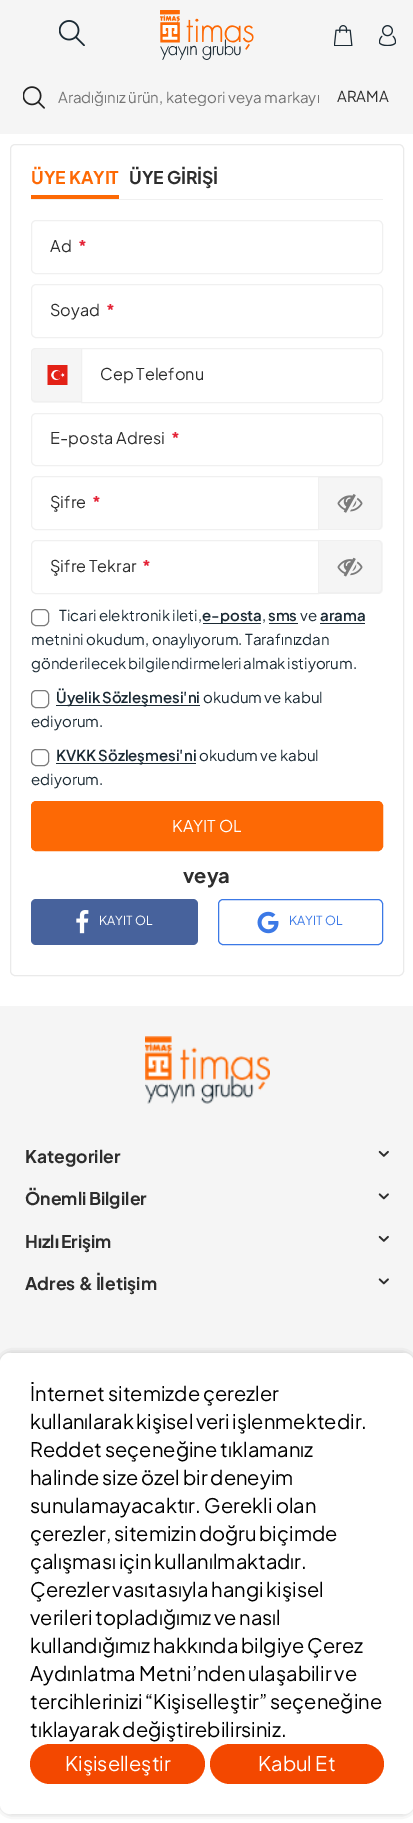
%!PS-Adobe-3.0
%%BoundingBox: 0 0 413 1823
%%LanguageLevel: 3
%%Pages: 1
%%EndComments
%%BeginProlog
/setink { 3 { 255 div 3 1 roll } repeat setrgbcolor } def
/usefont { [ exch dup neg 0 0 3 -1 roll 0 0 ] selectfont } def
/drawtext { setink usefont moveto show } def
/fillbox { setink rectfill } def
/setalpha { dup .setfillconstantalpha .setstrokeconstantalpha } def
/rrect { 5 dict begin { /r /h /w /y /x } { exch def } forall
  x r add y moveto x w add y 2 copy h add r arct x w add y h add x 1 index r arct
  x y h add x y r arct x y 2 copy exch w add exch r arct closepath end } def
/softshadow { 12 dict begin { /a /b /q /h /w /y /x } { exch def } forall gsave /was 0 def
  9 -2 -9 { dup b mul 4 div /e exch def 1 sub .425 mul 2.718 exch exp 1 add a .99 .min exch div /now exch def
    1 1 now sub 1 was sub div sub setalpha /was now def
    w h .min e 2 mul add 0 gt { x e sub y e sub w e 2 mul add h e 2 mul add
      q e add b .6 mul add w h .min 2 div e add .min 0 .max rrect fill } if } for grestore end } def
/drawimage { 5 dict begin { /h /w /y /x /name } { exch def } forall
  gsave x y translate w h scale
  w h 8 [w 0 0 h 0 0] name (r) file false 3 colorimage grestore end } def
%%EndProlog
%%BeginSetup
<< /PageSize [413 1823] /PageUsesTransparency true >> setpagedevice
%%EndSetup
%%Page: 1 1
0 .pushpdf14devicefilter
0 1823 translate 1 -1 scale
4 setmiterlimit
0 0 413 1823 255 255 255 fillbox
0 0 413 134 245 245 245 fillbox
(assets/img1.rgb) 59 20 26 26 drawimage
(assets/img2.rgb) 160 10 94 50 drawimage
(assets/img3.rgb) 334 25 19 21 drawimage
(assets/img4.rgb) 379 25 17 21 drawimage
(assets/img5.rgb) 23 86 22 23 drawimage
gsave
58 88 262 18 rectclip
(Aradığınız ürün, kategori veya markayı) 58 103 /PlusJakartaSans-Regular 15 117 117 117 drawtext
grestore
(ARAMA) 337 102 /PlusJakartaSans-Regular 15 45 45 45 drawtext
234 234 234 setink
10.5 144.5 393 831 4.5 rrect stroke
31 199 352 1 240 240 240 fillbox
(ÜYE KAYIT) 31 184 /PlusJakartaSans-Bold 17.5 253 105 5 drawtext
31 195 88 4 253 105 5 fillbox
(ÜYE GİRİŞİ) 129 184 /PlusJakartaSans-Bold 17.5 45 45 45 drawtext
240 240 240 setink
31.5 220.5 351 53 4.5 rrect stroke
(Ad) 50 252 /PlusJakartaSans-Regular 16.25 45 45 45 drawtext
(*) 78 252 /PlusJakartaSans-Bold 16.25 228 36 55 drawtext
240 240 240 setink
31.5 284.5 351 53 4.5 rrect stroke
(Soyad) 50 316 /PlusJakartaSans-Regular 16.25 45 45 45 drawtext
(*) 106 316 /PlusJakartaSans-Bold 16.25 228 36 55 drawtext
245 245 245 setink
36 348 moveto 81 348 lineto 81 403 lineto 36 403 lineto 33 403 31 401 31 398 curveto 31 353 lineto 31 350 33 348 36 348 curveto closepath fill
240 240 240 setink
36 348 moveto 81 348 lineto 81 402 lineto 36 402 lineto 33 402 31 400 31 398 curveto 31 352 lineto 31 350 33 348 36 348 curveto closepath 36 349 moveto 81 349 lineto 81 401 lineto 36 401 lineto 34 401 32 400 32 398 curveto 32 352 lineto 32 350 34 349 36 349 curveto closepath eofill
(assets/img6.rgb) 47 365 21 20 drawimage
81.5 348.5 moveto 378 348.5 lineto 380.5 348.5 382.5 350.5 382.5 353 curveto 382.5 398 lineto 382.5 400.5 380.5 402.5 378 402.5 curveto 81.5 402.5 lineto closepath stroke
(Cep Telefonu) 100 380 /PlusJakartaSans-Regular 16.25 45 45 45 drawtext
240 240 240 setink
31.5 413.5 351 52 4.5 rrect stroke
(E-posta Adresi) 50 444 /PlusJakartaSans-Regular 16.25 45 45 45 drawtext
(*) 171 444 /PlusJakartaSans-Bold 16.25 228 36 55 drawtext
240 240 240 setink
36 476.5 moveto 318.5 476.5 lineto 318.5 529.5 lineto 36 529.5 lineto 33.5 529.5 31.5 527.5 31.5 525 curveto 31.5 481 lineto 31.5 478.5 33.5 476.5 36 476.5 curveto closepath stroke
245 245 245 setink
319 476 moveto 378 476 lineto 381 476 383 478 383 481 curveto 383 525 lineto 383 528 381 530 378 530 curveto 319 530 lineto closepath fill
240 240 240 setink
319 476 moveto 378 476 lineto 380 476 382 478 382 481 curveto 382 525 lineto 382 528 380 530 378 530 curveto 319 530 lineto closepath 319 478 moveto 378 478 lineto 380 478 381 479 381 481 curveto 381 525 lineto 381 527 380 529 378 529 curveto 319 529 lineto closepath eofill
(assets/img7.rgb) 337 494 26 19 drawimage
(Şifre) 50 508 /PlusJakartaSans-Regular 16.25 45 45 45 drawtext
(*) 92 508 /PlusJakartaSans-Bold 16.25 228 36 55 drawtext
240 240 240 setink
36 540.5 moveto 318.5 540.5 lineto 318.5 593.5 lineto 36 593.5 lineto 33.5 593.5 31.5 591.5 31.5 589 curveto 31.5 545 lineto 31.5 542.5 33.5 540.5 36 540.5 curveto closepath stroke
245 245 245 setink
319 540 moveto 378 540 lineto 381 540 383 542 383 545 curveto 383 589 lineto 383 592 381 594 378 594 curveto 319 594 lineto closepath fill
240 240 240 setink
319 540 moveto 378 540 lineto 380 540 382 542 382 545 curveto 382 589 lineto 382 592 380 594 378 594 curveto 319 594 lineto closepath 319 541 moveto 378 541 lineto 380 541 381 543 381 545 curveto 381 589 lineto 381 591 380 592 378 592 curveto 319 592 lineto closepath eofill
(assets/img8.rgb) 337 557 26 20 drawimage
(Şifre Tekrar) 50 572 /PlusJakartaSans-Regular 16.25 45 45 45 drawtext
(*) 142 572 /PlusJakartaSans-Bold 16.25 228 36 55 drawtext
123 123 123 setink
31.5 609.5 17 16 4.5 rrect stroke
(Ticari elektronik ileti,) 59 621 /PlusJakartaSans-Regular 15 27 42 52 drawtext
203 623 58 1 27 42 52 fillbox
(e-posta) 202 621 /PlusJakartaSans-SemiBold 15 27 42 52 drawtext
(,) 262 621 /PlusJakartaSans-Regular 15 27 42 52 drawtext
269 623 29 1 27 42 52 fillbox
(sms) 268 621 /PlusJakartaSans-SemiBold 15 27 42 52 drawtext
(ve) 300 621 /PlusJakartaSans-Regular 15 27 42 52 drawtext
(arama) 320 621 /PlusJakartaSans-SemiBold 15 27 42 52 drawtext
320 623 45 1 27 42 52 fillbox
(metnini okudum, onaylıyorum. Tarafınızdan) 31 645 /PlusJakartaSans-Regular 15 27 42 52 drawtext
31 669 moveto -1 0 32 (gönderilecek bilgilendirmeleri almak istiyorum.) widthshow
123 123 123 setink
31.5 690.5 17 17 4.5 rrect stroke
56 705 144 1 27 42 52 fillbox
/PlusJakartaSans-SemiBold 15 usefont
56 703 moveto -1 0 32 (Üyelik Sözleşmesi'ni) widthshow
(okudum ve kabul) 203 703 /PlusJakartaSans-Regular 15 27 42 52 drawtext
(ediyorum.) 31 727 /PlusJakartaSans-Regular 15 27 42 52 drawtext
123 123 123 setink
31.5 749.5 17 16 4.5 rrect stroke
56 763 140 1 27 42 52 fillbox
/PlusJakartaSans-SemiBold 15 usefont
56 761 moveto -1 0 32 (KVKK Sözleşmesi'ni) widthshow
(okudum ve kabul) 199 761 /PlusJakartaSans-Regular 15 27 42 52 drawtext
(ediyorum.) 31 785 /PlusJakartaSans-Regular 15 27 42 52 drawtext
253 105 5 setink
31.5 801.5 351 49 4.5 rrect gsave fill grestore
stroke
(KAYIT OL) 172 832 /PlusJakartaSans-Regular 16.25 255 255 255 drawtext
(veya) 183 883 /PlusJakartaSans-Bold 20 45 45 45 drawtext
71 98 156 setink
31 899 167 46 5 rrect fill
(assets/img9.rgb) 76 910 13 24 drawimage
(KAYIT OL) 99 925 /PlusJakartaSans-Regular 12.5 255 255 255 drawtext
60 121 230 setink
218.5 899.5 164 45 4.5 rrect stroke
(assets/img10.rgb) 257 911 22 23 drawimage
(KAYIT OL) 289 925 /PlusJakartaSans-Regular 12.5 60 121 230 drawtext
0 1006 413 357 245 245 245 fillbox
(assets/img11.rgb) 145 1036 125 68 drawimage
(Kategoriler) 25 1163 /PlusJakartaSans-Bold 17.5 45 45 45 drawtext
(assets/img12.rgb) 378 1150 11 7 drawimage
25 1205 moveto -1 0 32 (Önemli Bilgiler) widthshow
(assets/img13.rgb) 378 1193 11 7 drawimage
25 1248 moveto -1 0 32 (Hızlı Erişim) widthshow
(assets/img12.rgb) 378 1235 11 7 drawimage
(Adres & İletişim) 25 1290 /PlusJakartaSans-Bold 17.5 45 45 45 drawtext
(assets/img13.rgb) 378 1278 11 7 drawimage
0 0 0 setink
6 1359 402 449 5 5 1 softshadow
255 255 255 setink
11 1353 moveto 404 1353 lineto 409.5 1353 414 1357.5 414 1363 curveto 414 1804 lineto 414 1809.5 409.5 1814 404 1814 curveto 10 1814 lineto 4.5 1814 0 1809.5 0 1804 curveto 0 1364 lineto 0 1358 5 1353 11 1353 curveto closepath fill
/PlusJakartaSans-Regular 20 usefont
0 0 0 setink
30 1401 moveto -0.5 0 32 (İnternet sitemizde çerezler) widthshow
255 255 255 setink
10 1353 moveto 4.5 1353 0 1357.5 0 1363 curveto 0 1392.5 lineto 39.5 1353 lineto closepath fill
0 0 0 setink
30 1429 moveto -1 0 32 (kullanılarak kişisel veri işlenmektedir.) widthshow
(Reddet) 30 1457 /PlusJakartaSans-Regular 20 0 0 0 drawtext
(seçeneğine tıklamanız) 105 1457 /PlusJakartaSans-Regular 20 0 0 0 drawtext
30 1485 moveto -0.5 0 32 (halinde size özel bir deneyim) widthshow
(sunulamayacaktır. Gerekli olan) 30 1513 /PlusJakartaSans-Regular 20 0 0 0 drawtext
30 1541 moveto -1 0 32 (çerezler, sitemizin doğru biçimde) widthshow
30 1569 moveto -0.5 0 32 (çalışması için kullanılmaktadır.) widthshow
30 1597 moveto -0.5 0 32 (Çerezler vasıtasıyla hangi kişisel) widthshow
30 1625 moveto -0.5 0 32 (verileri topladığımız ve nasıl) widthshow
30 1653 moveto -0.5 0 32 (kullandığımız hakkında bilgiye Çerez) widthshow
30 1681 moveto -0.5 0 32 (Aydınlatma Metni’nden ulaşabilir ve) widthshow
30 1709 moveto -1 0 32 (tercihlerinizi “Kişiselleştir” seçeneğine) widthshow
30 1737 moveto -1 0 32 (tıklayarak değiştirebilirsiniz.) widthshow
243 72 0 setink
30 1744 175 40 20 rrect fill
(Kişiselleştir) 65 1771 /PlusJakartaSans-Regular 20 255 255 255 drawtext
243 72 0 setink
210 1744 174 40 20 rrect fill
(Kabul Et) 258 1771 /PlusJakartaSans-Regular 20 255 255 255 drawtext
.poppdf14devicefilter showpage
%%EOF
